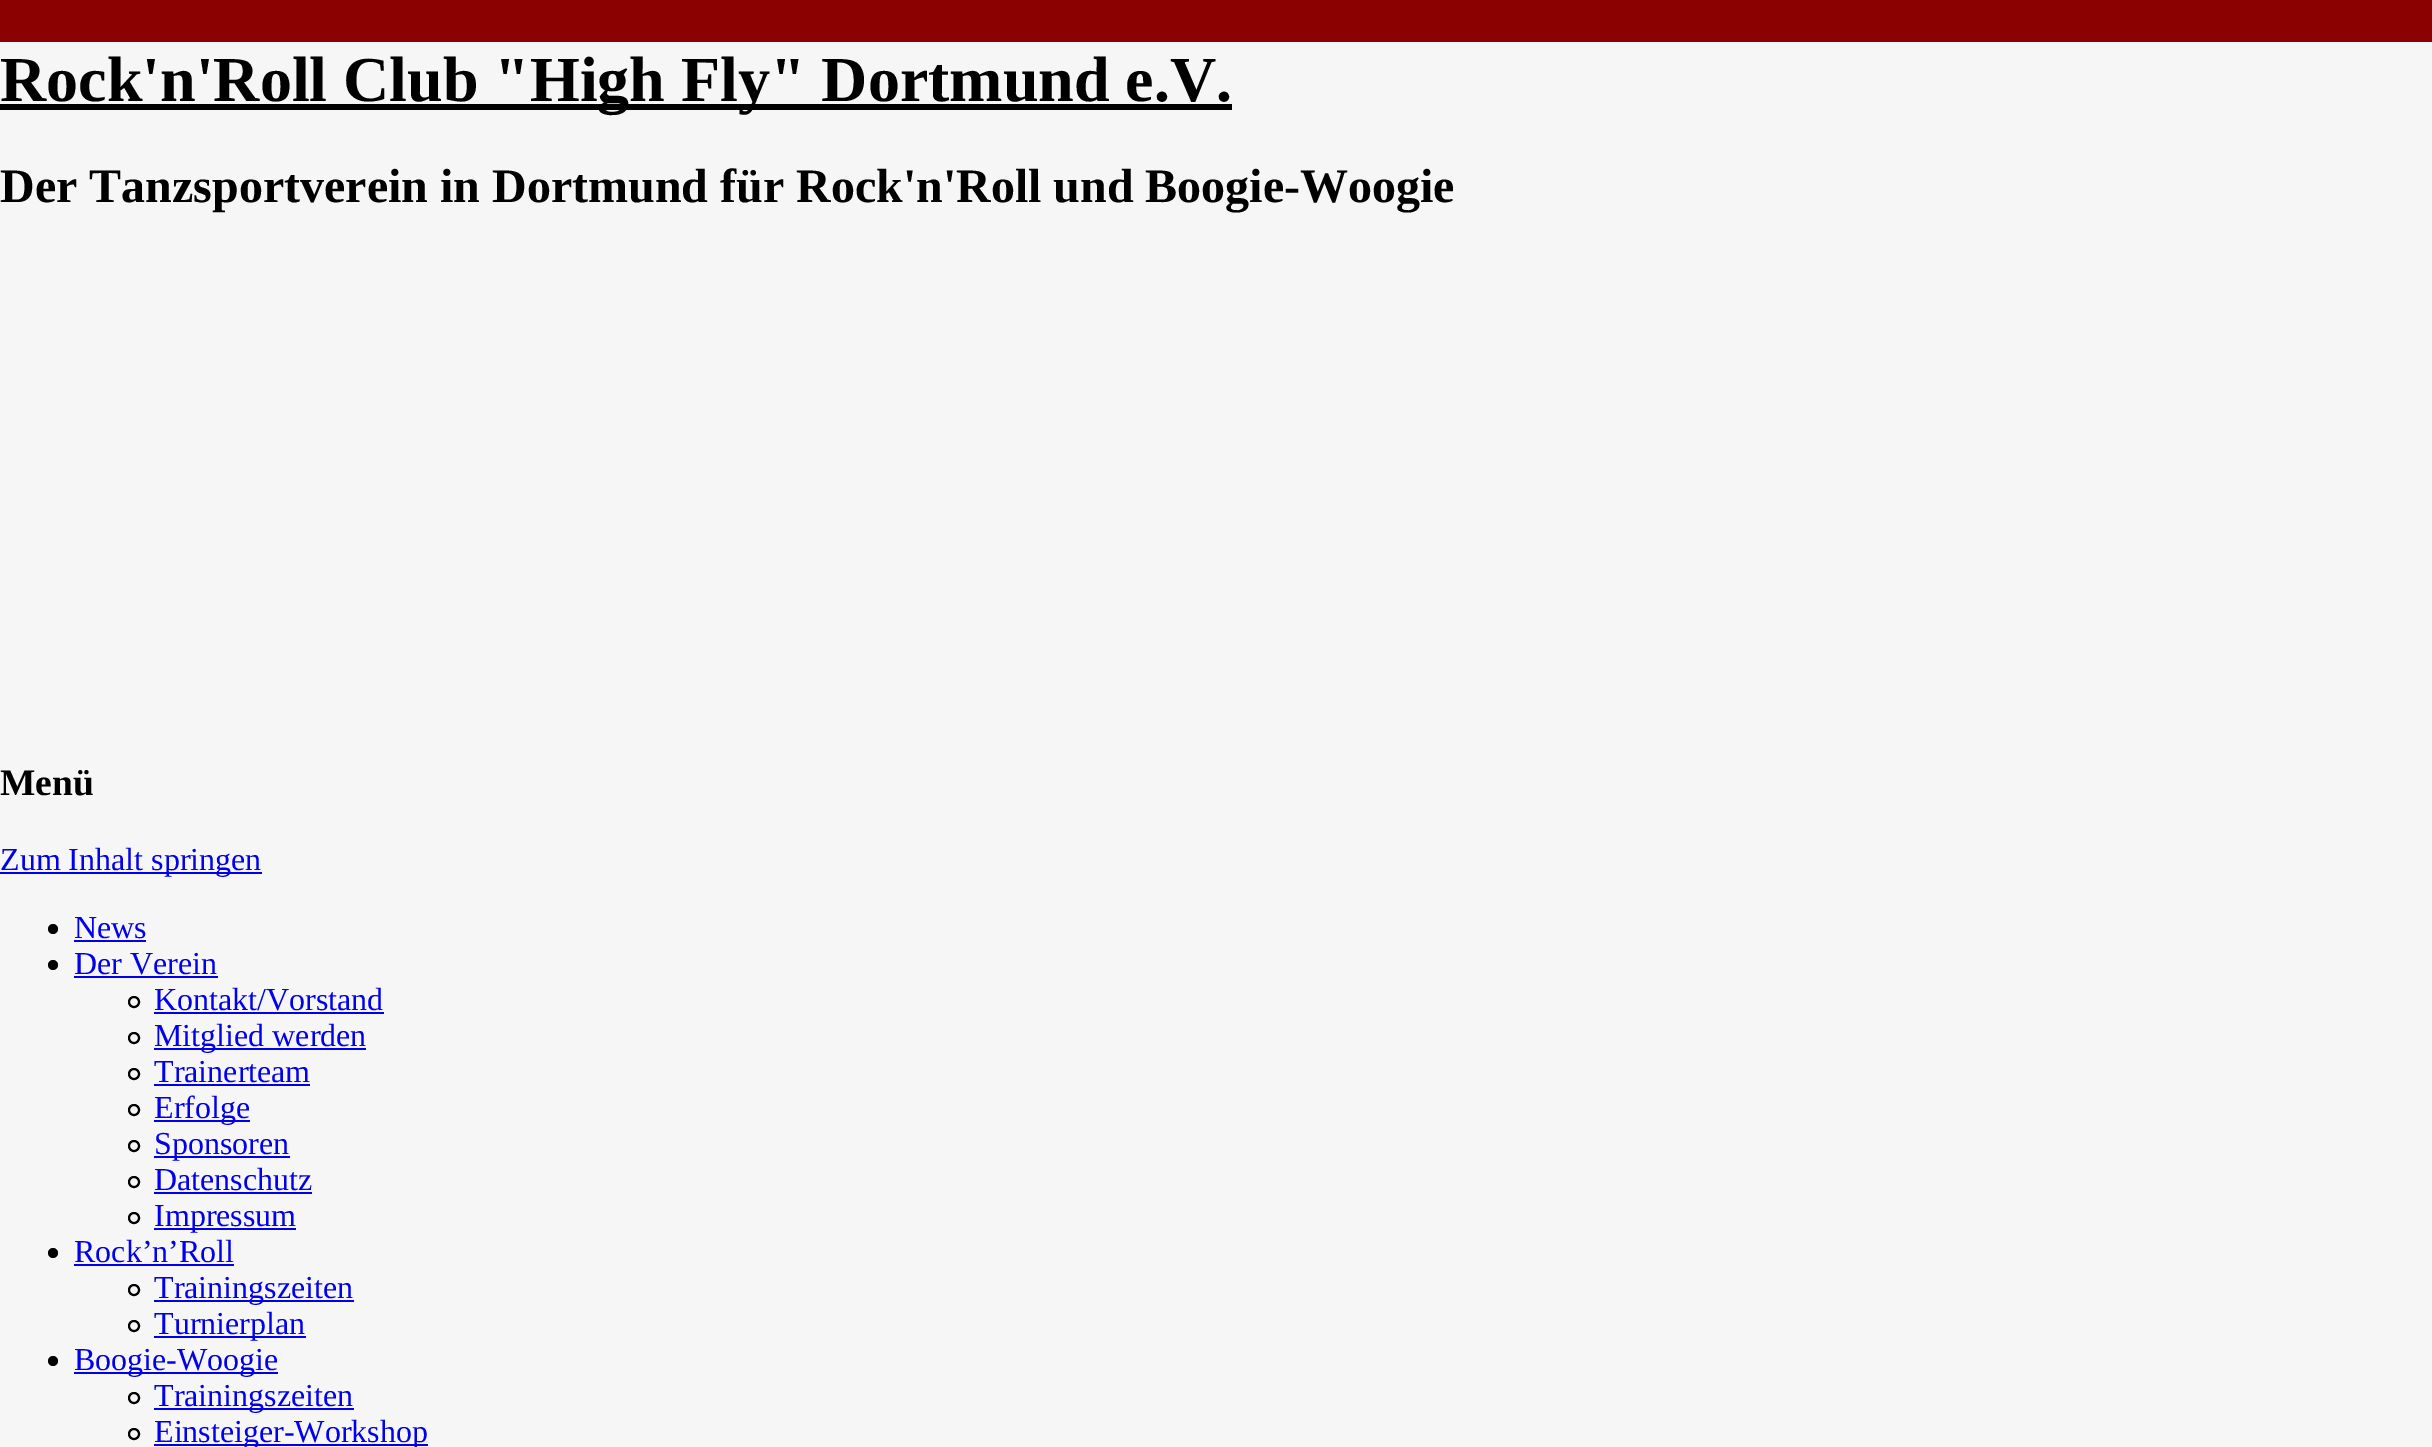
%!PS-Adobe-3.0
%%BoundingBox: 0 0 2432 1447
%%LanguageLevel: 3
%%Pages: 1
%%EndComments
%%BeginProlog
/setink { 3 { 255 div 3 1 roll } repeat setrgbcolor } def
/usefont { [ exch dup neg 0 0 3 -1 roll 0 0 ] selectfont } def
/drawtext { setink usefont moveto show } def
/fillbox { setink rectfill } def
/disc { newpath 0 360 arc closepath } def
%%EndProlog
%%BeginSetup
<< /PageSize [2432 1447] >> setpagedevice
%%EndSetup
%%Page: 1 1
0 1447 translate 1 -1 scale
4 setmiterlimit
0 0 2432 1447 139 0 0 fillbox
0 42 2432 1405 246 246 246 fillbox
0 104 1232 6 0 0 0 fillbox
(Rock'n'Roll Club "High Fly" Dortmund e.V.) 0 101 /LiberationSerif-Bold 64 0 0 0 drawtext
(Der Tanzsportverein in Dortmund für Rock'n'Roll und Boogie-Woogie) 0 202 /LiberationSerif-Bold 48 0 0 0 drawtext
(Menü) 0 795 /LiberationSerif-Bold 37.5 0 0 0 drawtext
0 872 262 2 0 0 238 fillbox
(Zum Inhalt springen) 0 870 /LiberationSerif-Regular 32 0 0 238 drawtext
0 0 0 setink
53 929 5 disc fill
(News) 74 938 /LiberationSerif-Regular 32 0 0 238 drawtext
74 940 72 2 0 0 238 fillbox
0 0 0 setink
53 965 5 disc fill
(Der Verein) 74 974 /LiberationSerif-Regular 32 0 0 238 drawtext
74 976 144 2 0 0 238 fillbox
0 0 0 setink
2 setlinewidth
134 1002 5 disc stroke
(Kontakt/Vorstand) 154 1010 /LiberationSerif-Regular 32 0 0 238 drawtext
154 1012 230 2 0 0 238 fillbox
0 0 0 setink
134 1038 5 disc stroke
154 1048 212 2 0 0 238 fillbox
(Mitglied werden) 154 1046 /LiberationSerif-Regular 32 0 0 238 drawtext
0 0 0 setink
134 1074 5 disc stroke
(Trainerteam) 154 1082 /LiberationSerif-Regular 32 0 0 238 drawtext
154 1084 156 2 0 0 238 fillbox
0 0 0 setink
134 1110 5 disc stroke
154 1120 96 2 0 0 238 fillbox
(Erfolge) 154 1118 /LiberationSerif-Regular 32 0 0 238 drawtext
0 0 0 setink
134 1146 5 disc stroke
154 1156 136 2 0 0 238 fillbox
(Sponsoren) 154 1154 /LiberationSerif-Regular 32 0 0 238 drawtext
0 0 0 setink
134 1182 5 disc stroke
(Datenschutz) 154 1190 /LiberationSerif-Regular 32 0 0 238 drawtext
154 1192 158 2 0 0 238 fillbox
0 0 0 setink
134 1218 5 disc stroke
154 1228 142 2 0 0 238 fillbox
(Impressum) 154 1226 /LiberationSerif-Regular 32 0 0 238 drawtext
0 0 0 setink
53 1253 5 disc fill
(Rock’n’Roll) 74 1262 /LiberationSerif-Regular 32 0 0 238 drawtext
74 1264 160 2 0 0 238 fillbox
0 0 0 setink
134 1290 5 disc stroke
154 1300 200 2 0 0 238 fillbox
(Trainingszeiten) 154 1298 /LiberationSerif-Regular 32 0 0 238 drawtext
0 0 0 setink
134 1326 5 disc stroke
154 1336 152 2 0 0 238 fillbox
(Turnierplan) 154 1334 /LiberationSerif-Regular 32 0 0 238 drawtext
0 0 0 setink
53 1361 5 disc fill
74 1372 204 2 0 0 238 fillbox
(Boogie-Woogie) 74 1370 /LiberationSerif-Regular 32 0 0 238 drawtext
0 0 0 setink
134 1398 5 disc stroke
154 1408 200 2 0 0 238 fillbox
(Trainingszeiten) 154 1406 /LiberationSerif-Regular 32 0 0 238 drawtext
0 0 0 setink
134 1434 5 disc stroke
154 1444 274 2 0 0 238 fillbox
(Einsteiger-Workshop) 154 1442 /LiberationSerif-Regular 32 0 0 238 drawtext
showpage
%%EOF
